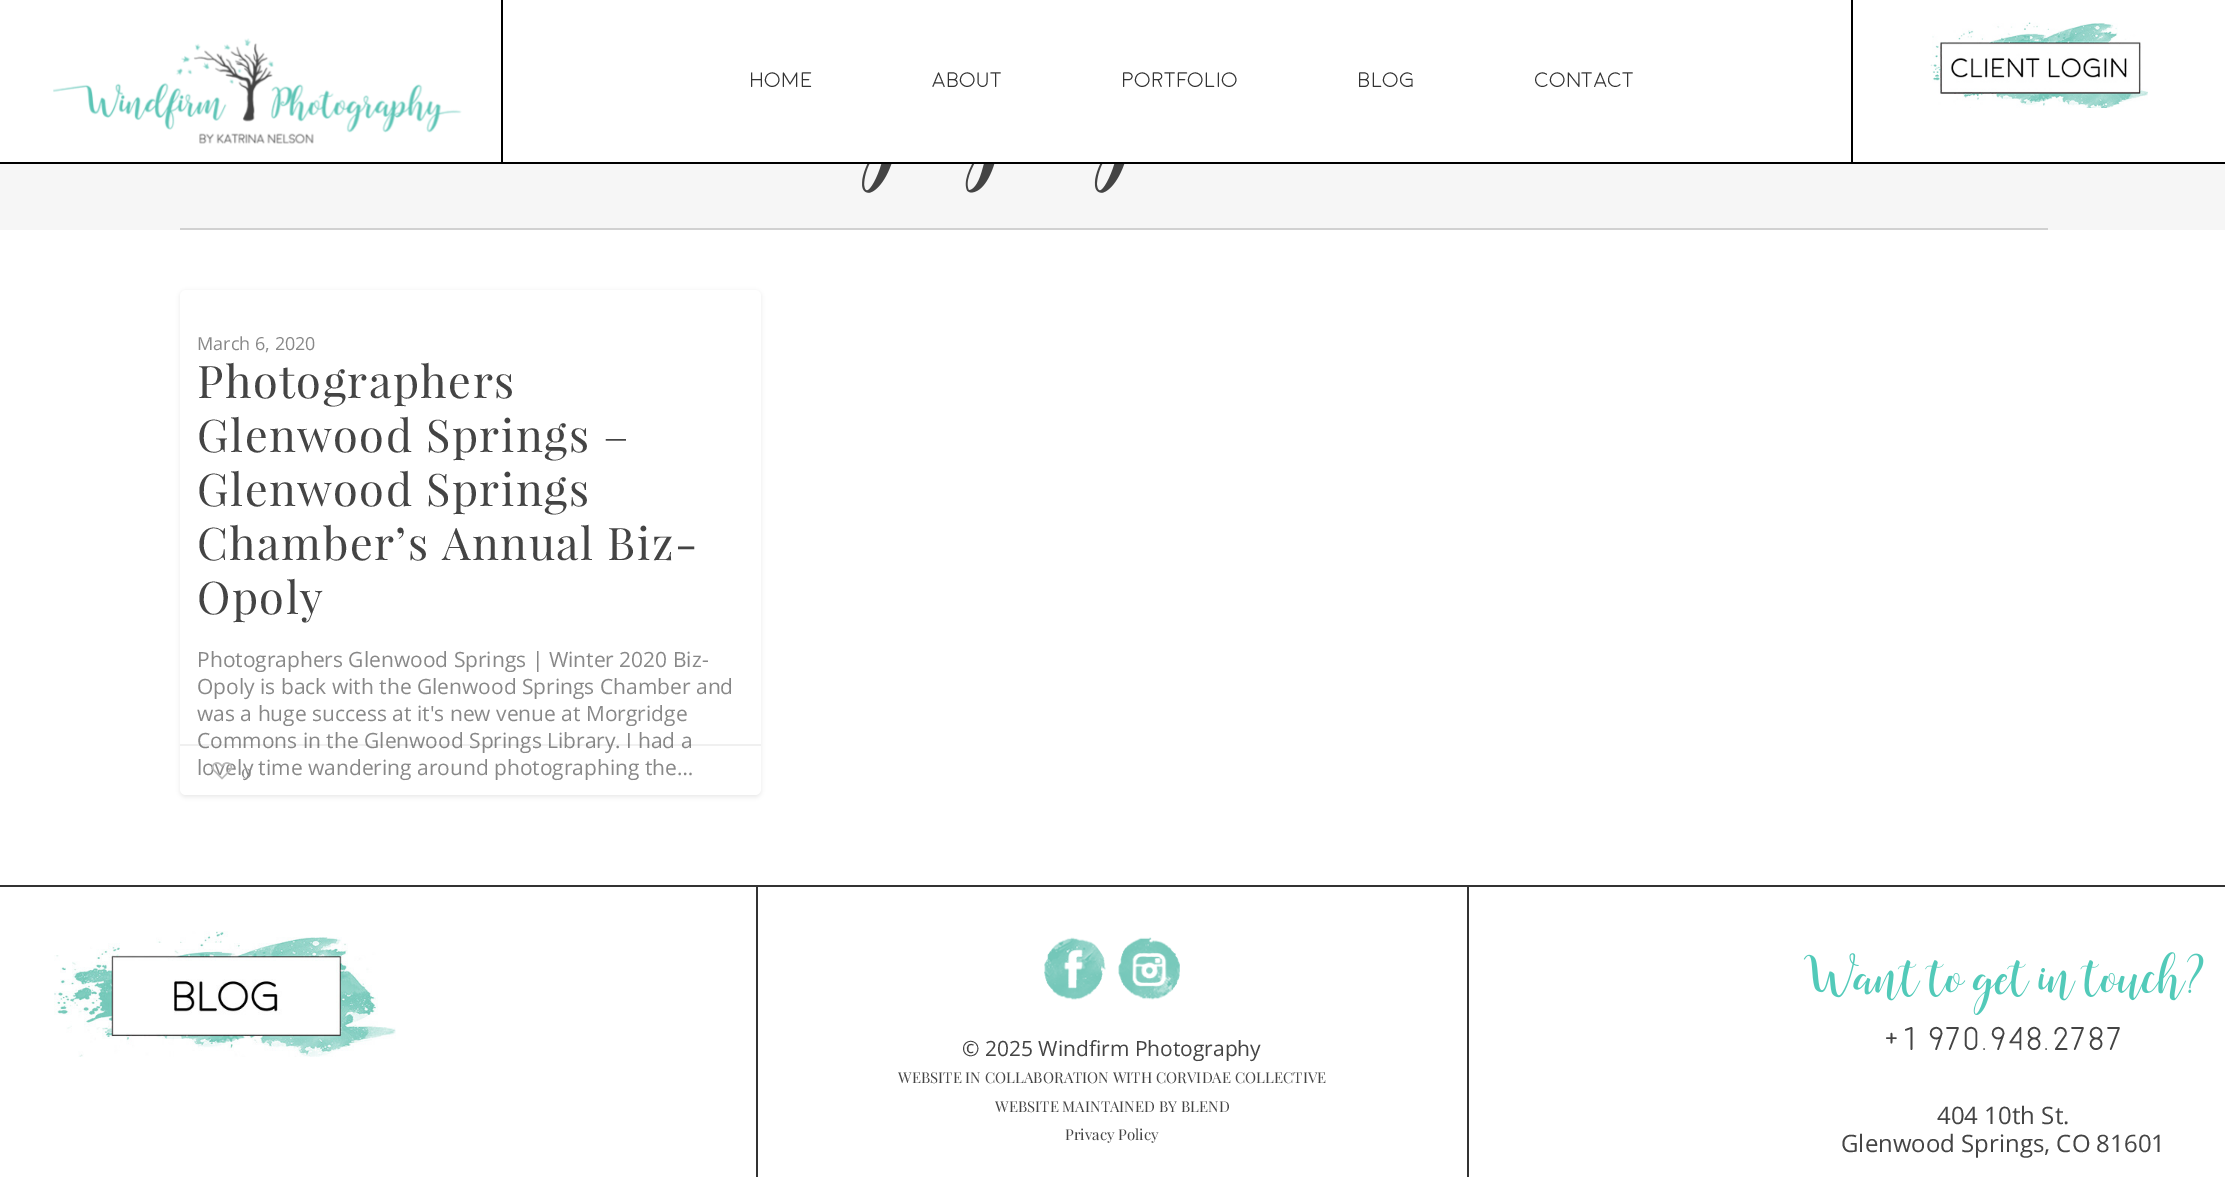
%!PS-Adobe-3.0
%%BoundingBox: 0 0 2225 1177
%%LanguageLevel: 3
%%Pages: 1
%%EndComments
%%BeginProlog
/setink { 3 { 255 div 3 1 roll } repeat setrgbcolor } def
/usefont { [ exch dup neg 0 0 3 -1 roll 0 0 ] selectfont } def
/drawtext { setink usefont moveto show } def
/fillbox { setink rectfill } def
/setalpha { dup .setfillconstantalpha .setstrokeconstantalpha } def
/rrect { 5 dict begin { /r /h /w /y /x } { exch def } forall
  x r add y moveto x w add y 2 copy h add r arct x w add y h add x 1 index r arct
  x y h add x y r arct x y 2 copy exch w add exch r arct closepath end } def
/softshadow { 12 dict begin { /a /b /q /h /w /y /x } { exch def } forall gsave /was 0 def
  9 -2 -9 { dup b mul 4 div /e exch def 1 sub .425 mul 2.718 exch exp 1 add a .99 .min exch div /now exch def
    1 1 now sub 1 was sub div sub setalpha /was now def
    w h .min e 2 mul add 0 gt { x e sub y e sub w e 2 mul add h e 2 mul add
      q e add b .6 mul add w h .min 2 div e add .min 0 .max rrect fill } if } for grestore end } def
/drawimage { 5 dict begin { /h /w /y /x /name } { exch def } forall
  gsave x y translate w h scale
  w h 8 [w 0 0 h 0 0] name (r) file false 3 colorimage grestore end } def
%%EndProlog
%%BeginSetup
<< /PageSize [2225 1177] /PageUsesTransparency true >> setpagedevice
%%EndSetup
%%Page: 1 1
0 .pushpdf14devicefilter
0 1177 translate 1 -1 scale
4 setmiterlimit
0 0 2225 1177 255 255 255 fillbox
0 162 2225 2 0 0 0 fillbox
501 0 2 162 0 0 0 fillbox
(assets/img1.rgb) 53 38 409 106 drawimage
(Home) 750 87 /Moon-Light 21 51 51 51 drawtext
(About) 932 87 /Moon-Light 21 51 51 51 drawtext
(Portfolio) 1122 87 /Moon-Light 21 51 51 51 drawtext
(Blog) 1358 87 /Moon-Light 21 51 51 51 drawtext
(Contact) 1535 87 /Moon-Light 21 51 51 51 drawtext
(assets/img2.rgb) 1930 22 218 86 drawimage
1851 0 2 162 0 0 0 fillbox
0 164 2225 66 246 246 246 fillbox
180 228 1868 2 209 209 209 fillbox
(assets/img3.rgb) 862 164 263 29 drawimage
0 0 0 setink
180 291 581 506 6 2 0.08 softshadow
255 255 255 setink
180 290 581 505 6 rrect fill
(March 6, 2020) 197 350 /OpenSans-Regular 18 136 136 136 drawtext
/PlayfairDisplay-Regular 45 usefont
68 68 68 setink
197 398 moveto 1.5 0 (Photographers) ashow
197 452 moveto 1.5 0 (Glenwood Springs –) ashow
197 506 moveto 1.5 0 (Glenwood Springs) ashow
197 560 moveto 1.5 0 (Chamber’s Annual Biz-) ashow
197 614 moveto 1.5 0 (Opoly) ashow
(Photographers Glenwood Springs | Winter 2020 Biz-) 197 667 /OpenSans-Regular 21 136 136 136 drawtext
(Opoly is back with the Glenwood Springs Chamber and) 197 694 /OpenSans-Regular 21 136 136 136 drawtext
(was a huge success at it's new venue at Morgridge) 197 721 /OpenSans-Regular 21 136 136 136 drawtext
(Commons in the Glenwood Springs Library. I had a) 197 748 /OpenSans-Regular 21 136 136 136 drawtext
(lovely time wandering around photographing the…) 197 775 /OpenSans-Regular 21 136 136 136 drawtext
0.06 setalpha
180 744 581 2 0 0 0 fillbox
1 setalpha
(assets/img4.rgb) 212 762 21 18 drawimage
(0) 241 778 /PlayfairDisplay-Regular 18 136 136 136 drawtext
0 885 2225 2 51 51 51 fillbox
(assets/img5.rgb) 54 931 342 126 drawimage
1467 887 2 290 51 51 51 fillbox
756 887 2 290 51 51 51 fillbox
(assets/img6.rgb) 1044 937 62 63 drawimage
(assets/img7.rgb) 1118 937 62 63 drawimage
(© 2025 Windfirm Photography) 962 1056 /OpenSans-Regular 21 68 68 68 drawtext
(WEBSITE IN COLLABORATION WITH CORVIDAE COLLECTIVE) 898 1083 /PlayfairDisplay-Regular 15 68 68 68 drawtext
(WEBSITE MAINTAINED BY BLEND) 995 1112 /PlayfairDisplay-Regular 15 68 68 68 drawtext
(Privacy Policy) 1065 1140 /PlayfairDisplay-Regular 15 68 68 68 drawtext
(assets/img8.rgb) 1803 952 401 63 drawimage
(+1 970.948.2787) 1884 1050 /Moon-Light 33 68 68 68 drawtext
(404 10th St.) 1937 1124 /OpenSans-Regular 24 68 68 68 drawtext
(Glenwood Springs, CO 81601) 1841 1152 /OpenSans-Regular 24 68 68 68 drawtext
.poppdf14devicefilter showpage
%%EOF
